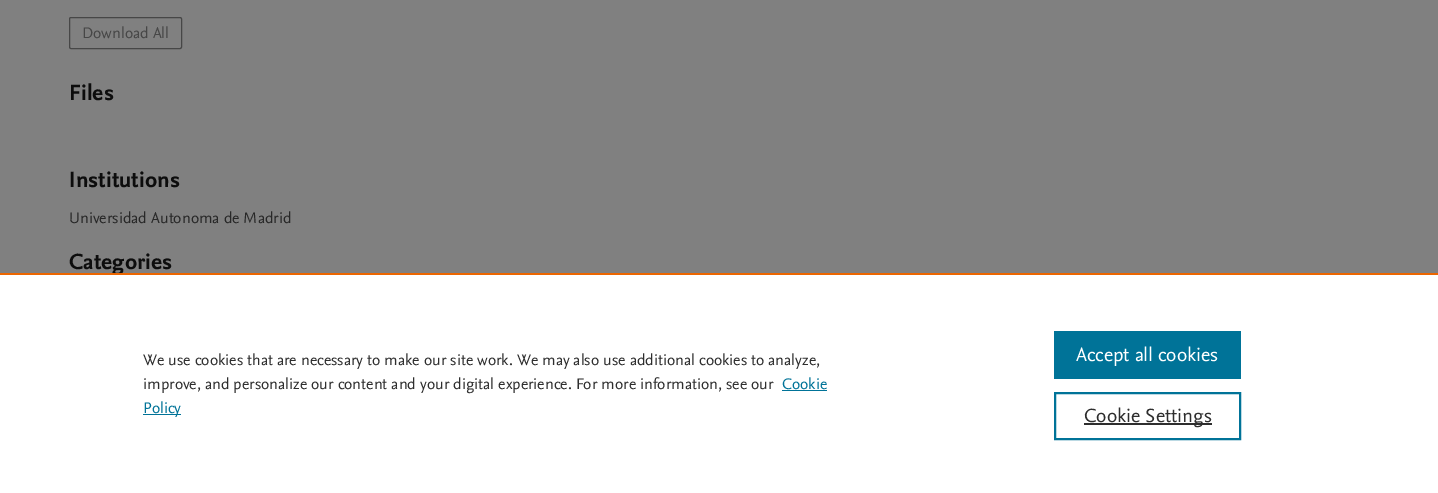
%!PS-Adobe-3.0
%%BoundingBox: 0 0 1438 493
%%LanguageLevel: 3
%%Pages: 1
%%EndComments
%%BeginProlog
/setink { 3 { 255 div 3 1 roll } repeat setrgbcolor } def
/usefont { [ exch dup neg 0 0 3 -1 roll 0 0 ] selectfont } def
/drawtext { setink usefont moveto show } def
/fillbox { setink rectfill } def
/rrect { 5 dict begin { /r /h /w /y /x } { exch def } forall
  x r add y moveto x w add y 2 copy h add r arct x w add y h add x 1 index r arct
  x y h add x y r arct x y 2 copy exch w add exch r arct closepath end } def
%%EndProlog
%%BeginSetup
<< /PageSize [1438 493] >> setpagedevice
%%EndSetup
%%Page: 1 1
0 493 translate 1 -1 scale
4 setmiterlimit
0 0 1438 493 128 128 128 fillbox
71 71 71 setink
69.5 17.5 112 31 1.5 rrect stroke
(Download All) 82 38 /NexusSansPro-Regular 16 71 71 71 drawtext
(Files) 69 100 /NexusSansPro-Bold 23 13 13 13 drawtext
(Institutions) 69 187 /NexusSansPro-Bold 23 13 13 13 drawtext
(Universidad Autonoma de Madrid) 69 223 /NexusSansPro-Regular 16 40 40 40 drawtext
(Categories) 69 269 /NexusSansPro-Bold 23 13 13 13 drawtext
0 275 1438 218 255 255 255 fillbox
0 273 1438 2 235 101 0 fillbox
(We use cookies that are necessary to make our site work. We may also use additional cookies to analyze,) 143 365 /NexusSansPro-Regular 16 46 46 46 drawtext
(improve, and personalize our content and your digital experience. For more information, see our) 143 389 /NexusSansPro-Regular 16 46 46 46 drawtext
(Cookie) 782 389 /NexusSansPro-Regular 16 0 115 152 drawtext
782 390 45 1 0 115 152 fillbox
143 414 38 1 0 115 152 fillbox
(Policy) 143 413 /NexusSansPro-Regular 16 0 115 152 drawtext
1054 331 187 48 0 115 152 fillbox
(Accept all cookies) 1076 361 /NexusSansPro-Regular 20 255 255 255 drawtext
0 115 152 setink
2 setlinewidth
1055 393 185 46 rectstroke
1084 423 128 2 46 46 46 fillbox
(Cookie Settings) 1084 422 /NexusSansPro-Regular 20 46 46 46 drawtext
showpage
%%EOF
